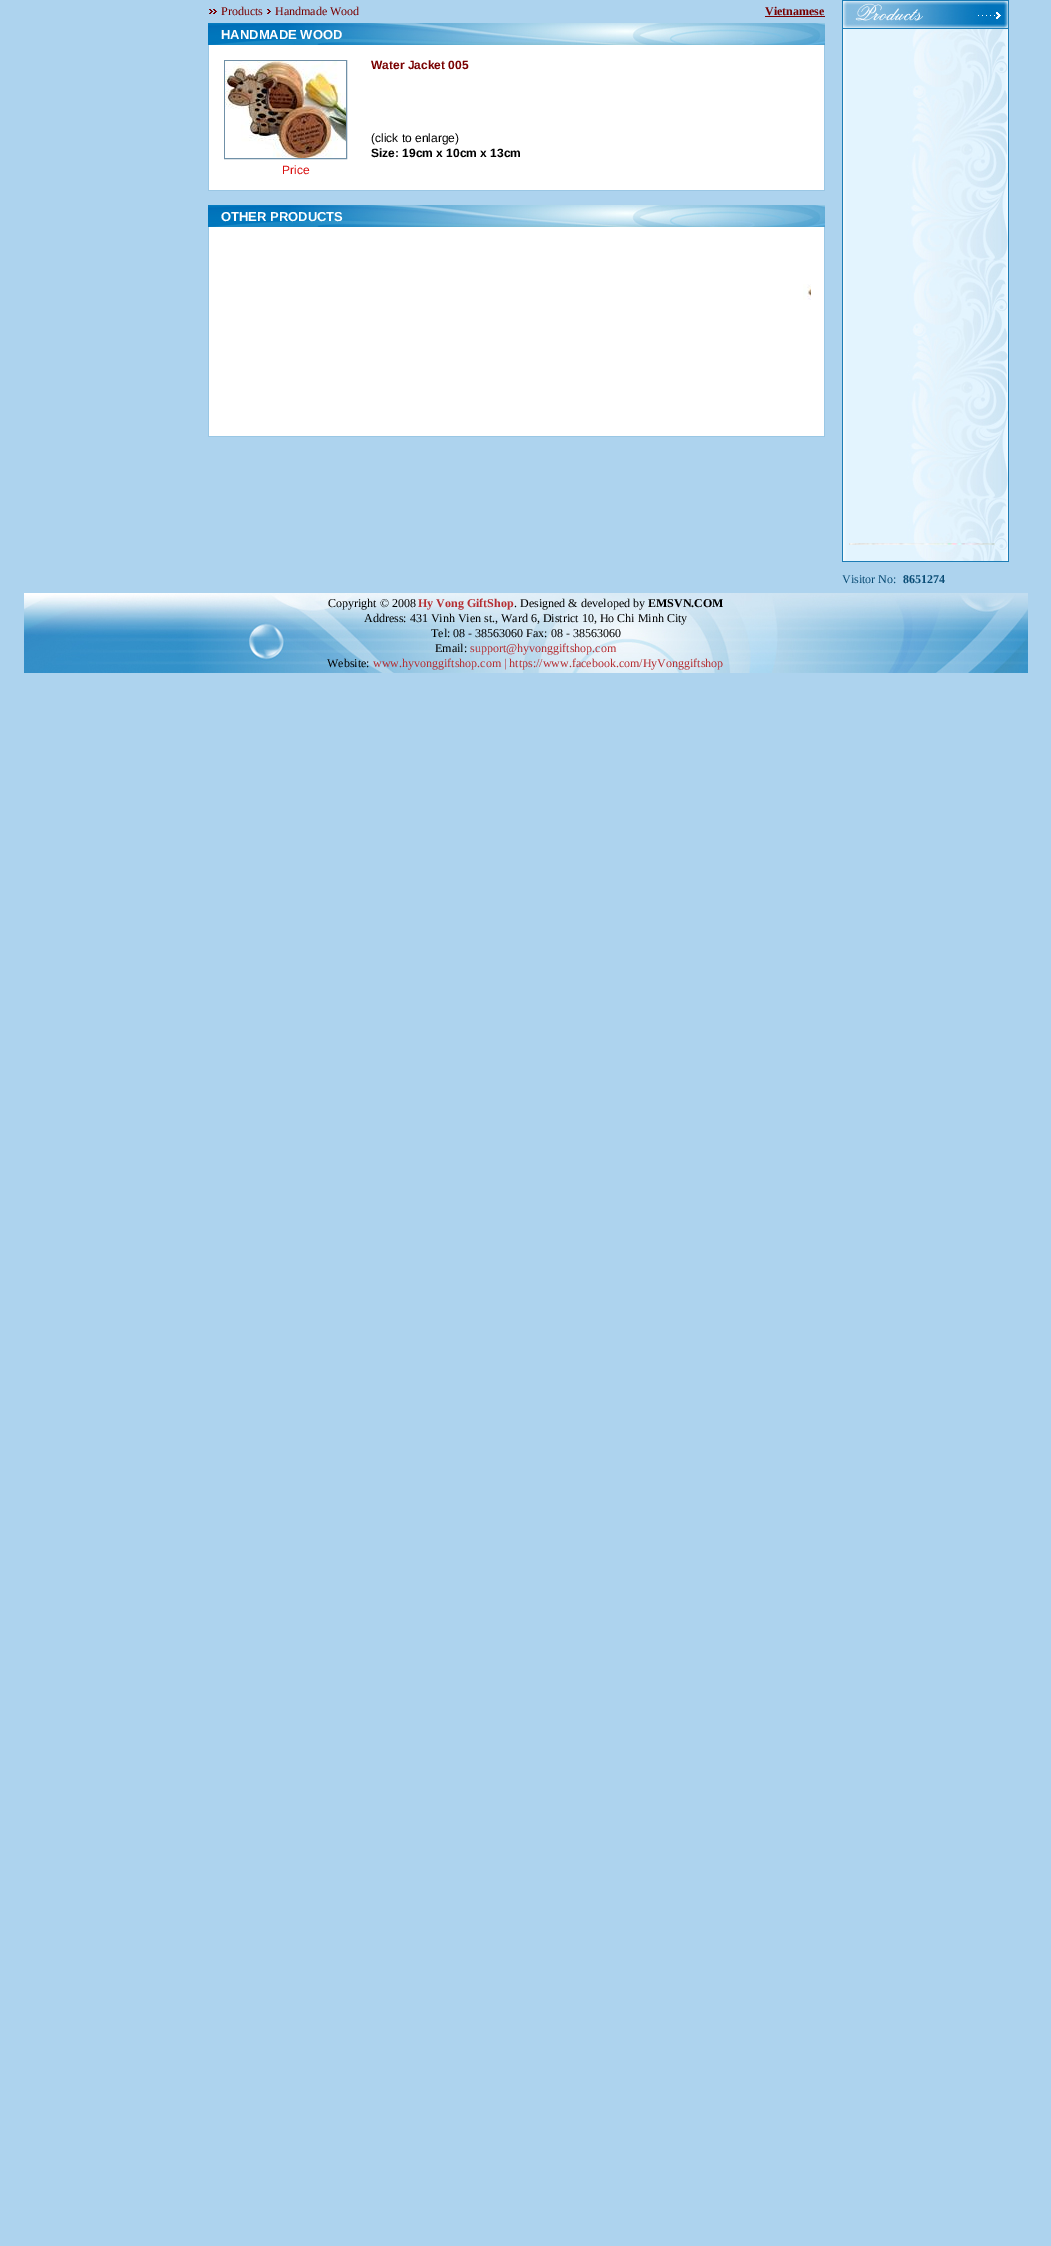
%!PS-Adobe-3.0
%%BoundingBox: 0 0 1051 2246
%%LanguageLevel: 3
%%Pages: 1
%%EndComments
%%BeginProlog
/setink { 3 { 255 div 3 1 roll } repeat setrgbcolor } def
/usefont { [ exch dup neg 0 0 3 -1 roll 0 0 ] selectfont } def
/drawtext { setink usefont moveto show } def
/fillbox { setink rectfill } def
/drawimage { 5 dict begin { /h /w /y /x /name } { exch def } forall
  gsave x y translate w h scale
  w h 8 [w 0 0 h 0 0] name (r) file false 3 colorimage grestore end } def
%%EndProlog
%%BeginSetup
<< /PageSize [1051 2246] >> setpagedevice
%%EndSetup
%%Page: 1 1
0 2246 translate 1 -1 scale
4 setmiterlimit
0 0 1051 2246 173 211 238 fillbox
(assets/img1.rgb) 209 9 8 5 drawimage
(Products) 221 15 /LiberationSerif-Regular 12 121 0 0 drawtext
(assets/img2.rgb) 267 9 4 5 drawimage
(Handmade Wood) 275 15 /LiberationSerif-Regular 12 121 0 0 drawtext
(Vietnamese) 765 15 /LiberationSerif-Bold 12 121 0 0 drawtext
765 16 60 1 121 0 0 fillbox
(assets/img3.rgb) 208 23 617 22 drawimage
(HANDMADE WOOD) 221 39 /LiberationSans-Bold 13 255 255 255 drawtext
209 45 615 145 255 255 255 fillbox
824 45 1 146 154 199 228 fillbox
208 190 617 1 154 199 228 fillbox
208 45 1 146 154 199 228 fillbox
(Water Jacket 005) 371 69 /LiberationSans-Bold 12 121 0 0 drawtext
(\(click to enlarge\)) 371 142 /LiberationSans-Regular 12 0 0 0 drawtext
(Size: 19cm x 10cm x 13cm) 371 157 /LiberationSans-Bold 12 0 0 0 drawtext
112 144 167 setink
224.5 60.5 122 98 rectstroke
(assets/img4.rgb) 225 61 121 97 drawimage
(Price) 282 174 /LiberationSans-Regular 12 217 14 14 drawtext
(assets/img3.rgb) 208 205 617 22 drawimage
(OTHER PRODUCTS) 221 221 /LiberationSans-Bold 13 255 255 255 drawtext
209 227 615 209 255 255 255 fillbox
824 227 1 210 154 199 228 fillbox
208 436 617 1 154 199 228 fillbox
208 227 1 210 154 199 228 fillbox
(assets/img5.rgb) 803 284 8 16 drawimage
842 0 167 562 28 124 181 fillbox
(assets/img6.rgb) 843 1 165 27 drawimage
(assets/img7.rgb) 843 29 165 532 drawimage
(assets/img8.rgb) 849 543 146 2 drawimage
(Visitor No:) 842 583 /LiberationSerif-Regular 12 10 77 118 drawtext
(8651274) 903 583 /LiberationSerif-Bold 12 10 77 118 drawtext
(assets/img9.rgb) 24 593 1004 80 drawimage
(Copyright © 2008) 328 607 /LiberationSerif-Regular 12 0 0 0 drawtext
(Hy Vong GiftShop) 418 607 /LiberationSerif-Bold 12 181 45 49 drawtext
(. Designed & developed by) 514 607 /LiberationSerif-Regular 12 0 0 0 drawtext
(EMSVN.COM) 648 607 /LiberationSerif-Bold 12 0 0 0 drawtext
(Address: 431 Vinh Vien st., Ward 6, District 10, Ho Chi Minh City) 364 622 /LiberationSerif-Regular 12 0 0 0 drawtext
(Tel: 08 - 38563060 Fax: 08 - 38563060) 431 637 /LiberationSerif-Regular 12 0 0 0 drawtext
(Email:) 435 652 /LiberationSerif-Regular 12 0 0 0 drawtext
(support@hyvonggiftshop.com) 470 652 /LiberationSerif-Regular 12 181 45 49 drawtext
(Website:) 327 667 /LiberationSerif-Regular 12 0 0 0 drawtext
(www.hyvonggiftshop.com | https://www.facebook.com/HyVonggiftshop) 373 667 /LiberationSerif-Regular 12 181 45 49 drawtext
showpage
%%EOF
